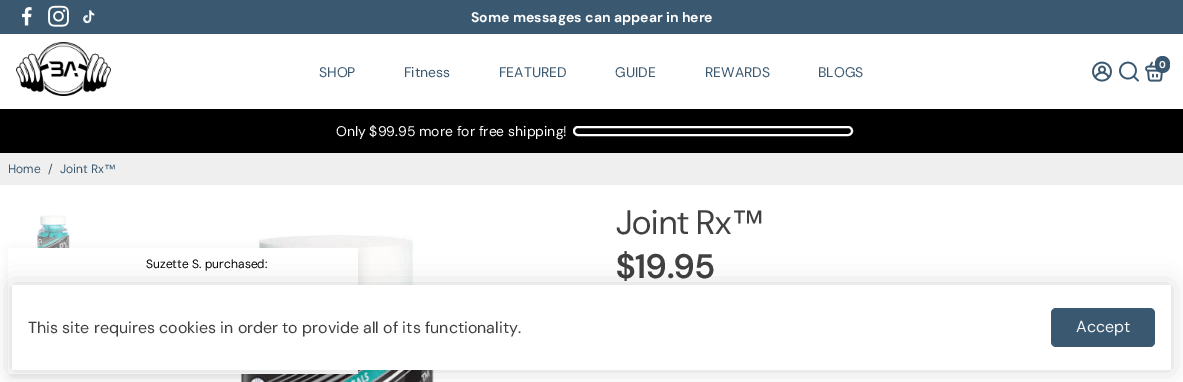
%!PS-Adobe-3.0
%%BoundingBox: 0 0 1183 382
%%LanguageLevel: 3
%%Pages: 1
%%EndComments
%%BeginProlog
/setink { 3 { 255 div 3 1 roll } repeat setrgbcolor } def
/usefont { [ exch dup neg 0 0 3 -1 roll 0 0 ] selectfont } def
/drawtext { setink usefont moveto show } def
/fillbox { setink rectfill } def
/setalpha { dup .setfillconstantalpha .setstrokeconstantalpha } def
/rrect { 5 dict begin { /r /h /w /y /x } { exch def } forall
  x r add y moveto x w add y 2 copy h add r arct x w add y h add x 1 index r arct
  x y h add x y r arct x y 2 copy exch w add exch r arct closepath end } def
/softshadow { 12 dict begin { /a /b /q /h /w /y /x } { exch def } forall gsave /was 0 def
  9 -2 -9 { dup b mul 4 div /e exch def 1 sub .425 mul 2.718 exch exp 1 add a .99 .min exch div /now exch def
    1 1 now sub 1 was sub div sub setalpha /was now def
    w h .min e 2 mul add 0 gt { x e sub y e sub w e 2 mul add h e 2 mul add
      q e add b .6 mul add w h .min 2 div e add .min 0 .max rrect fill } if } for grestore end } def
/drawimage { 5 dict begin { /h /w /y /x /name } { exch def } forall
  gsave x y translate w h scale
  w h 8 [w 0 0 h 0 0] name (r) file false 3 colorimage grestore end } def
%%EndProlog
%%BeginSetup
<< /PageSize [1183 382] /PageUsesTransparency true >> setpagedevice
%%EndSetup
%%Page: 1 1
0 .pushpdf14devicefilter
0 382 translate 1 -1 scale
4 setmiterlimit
0 0 1183 382 255 255 255 fillbox
0 0 1183 34 58 89 113 fillbox
(assets/img1.rgb) 22 7 10 19 drawimage
(assets/img2.rgb) 48 5 21 22 drawimage
(assets/img3.rgb) 83 10 12 14 drawimage
(Some messages can appear in here) 471 22 /DMSans-Bold 14 255 255 255 drawtext
(assets/img4.rgb) 16 42 95 54 drawimage
(assets/img5.rgb) 1092 61 20 21 drawimage
(assets/img6.rgb) 1119 61 20 21 drawimage
(assets/img7.rgb) 1145 61 18 21 drawimage
58 89 113 setink
1155 56 15 17 7.5 rrect fill
(0) 1159 68 /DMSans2-Bold 10 245 246 248 drawtext
(SHOP) 319 77 /DMSans2-Regular 14 58 89 113 drawtext
(Fitness) 404 77 /DMSans2-Regular 14 58 89 113 drawtext
(FEATURED) 499 77 /DMSans2-Regular 14 58 89 113 drawtext
(GUIDE) 615 77 /DMSans2-Regular 14 58 89 113 drawtext
(REWARDS) 705 77 /DMSans2-Regular 14 58 89 113 drawtext
(BLOGS) 818 77 /DMSans2-Regular 14 58 89 113 drawtext
0 109 1183 44 0 0 0 fillbox
(Only $99.95 more for free shipping!) 336 136 /DMSans2-Regular 14 255 255 255 drawtext
2 setlinewidth
574 127 278 8 4 rrect stroke
0 153 1183 32 239 239 239 fillbox
(Home) 8 173 /DMSans-Regular 12 58 89 113 drawtext
(/) 48 173 /DMSans-Regular 12 58 89 113 drawtext
(Joint Rx) 60 173 /DMSans-Regular 12 58 89 113 drawtext
(™) 104 173 /LiberationSans-Regular 12 58 89 113 drawtext
(assets/img8.rgb) 32 215 43 33 drawimage
(assets/img9.rgb) 238 235 196 147 drawimage
(Joint Rx) 616 234 /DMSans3-Regular 34 64 64 64 drawtext
(™) 731 234 /LiberationSans-Regular 34 64 64 64 drawtext
($19.95) 616 278 /DMSans-SemiBold 34 64 64 64 drawtext
0 0 0 setink
11 251 350 126 0 5 0.08 softshadow
8 248 350 126 255 255 255 fillbox
(Suzette S. purchased:) 146 268 /DMSans-Regular 12 0 0 0 drawtext
12 285 1159 85 0 12 0.16 softshadow
12 285 1159 85 255 255 255 fillbox
(This site requires cookies in order to provide all of its functionality.) 28 333 /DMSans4-Regular 16 64 64 64 drawtext
58 89 113 setink
1051 308 104 39 5 rrect fill
(Accept) 1076 332 /DMSans4-Regular 16 245 246 248 drawtext
.poppdf14devicefilter showpage
%%EOF
